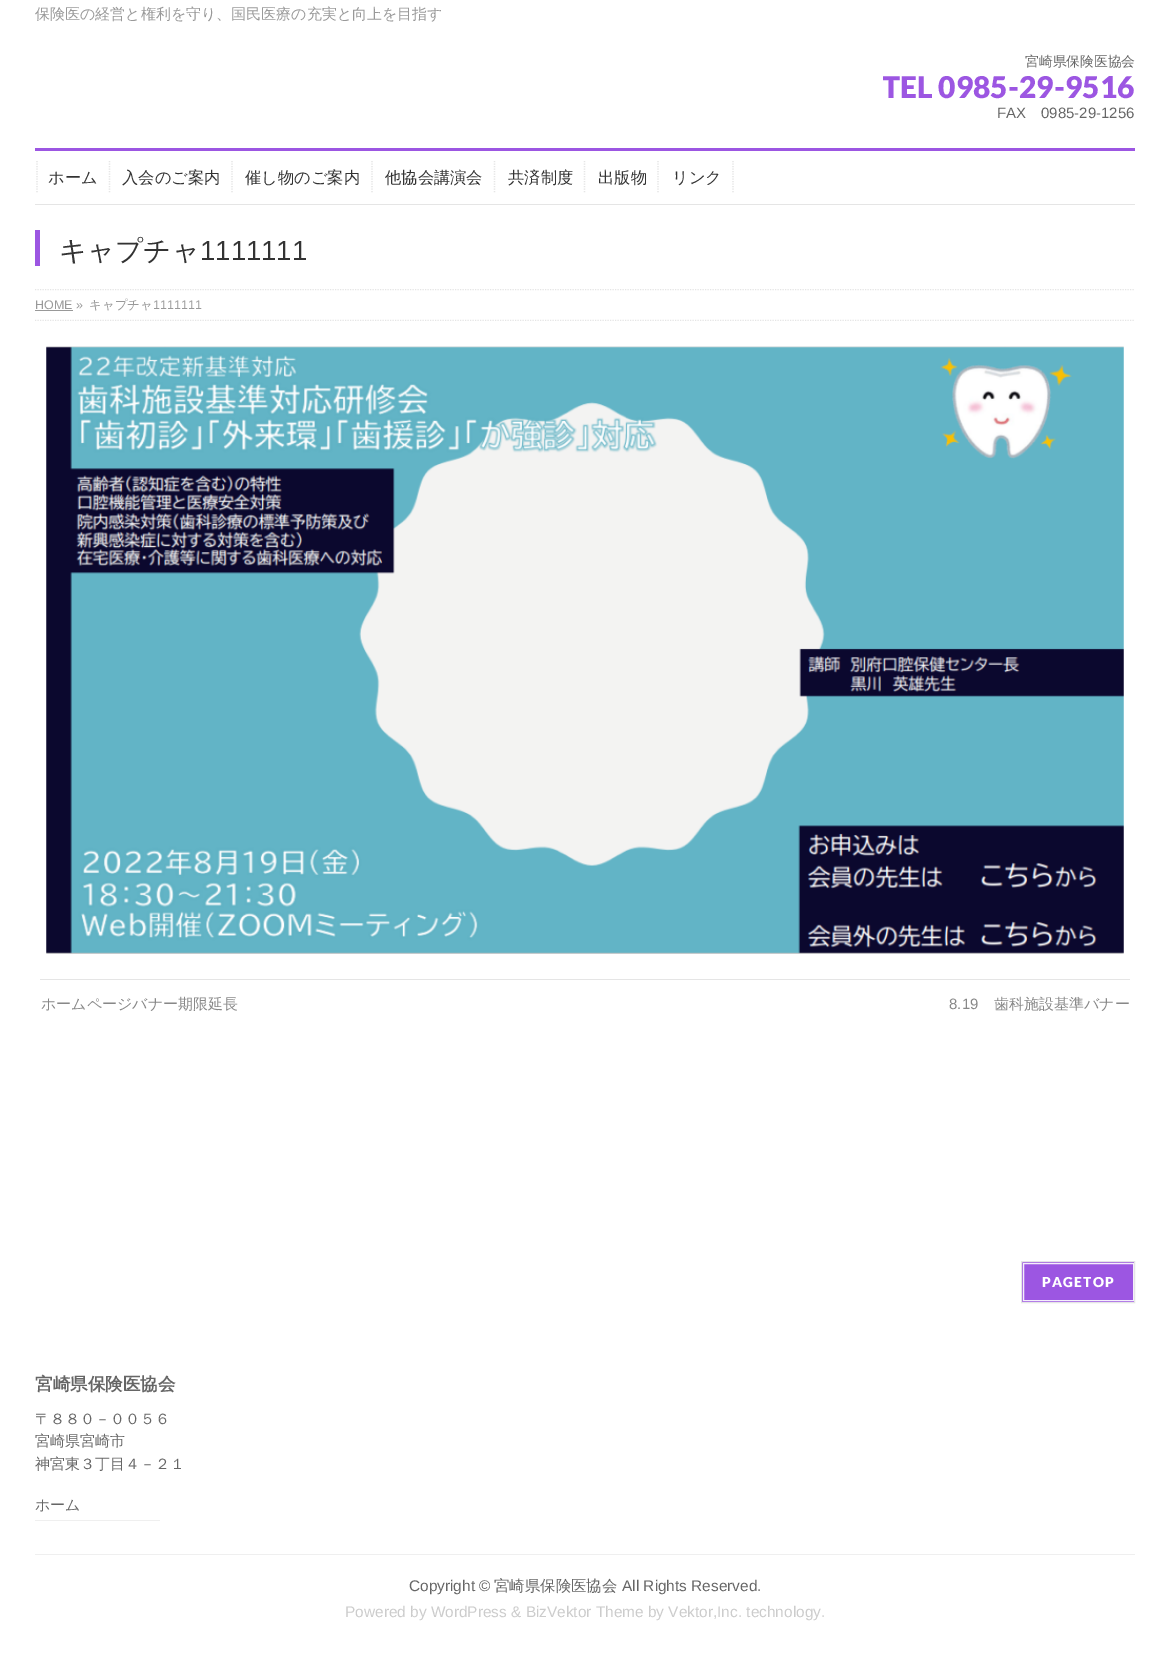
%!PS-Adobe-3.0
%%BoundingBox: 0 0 1169 1664
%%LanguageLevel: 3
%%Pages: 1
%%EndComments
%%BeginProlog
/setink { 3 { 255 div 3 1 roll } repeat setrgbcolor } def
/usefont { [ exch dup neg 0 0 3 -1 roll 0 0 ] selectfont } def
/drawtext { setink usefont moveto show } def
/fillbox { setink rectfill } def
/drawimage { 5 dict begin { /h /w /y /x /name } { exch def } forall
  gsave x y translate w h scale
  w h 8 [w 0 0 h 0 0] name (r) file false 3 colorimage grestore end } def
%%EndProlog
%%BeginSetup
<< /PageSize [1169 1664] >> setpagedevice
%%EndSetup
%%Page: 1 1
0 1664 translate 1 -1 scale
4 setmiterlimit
0 0 1169 1664 255 255 255 fillbox
(保険医の経営と権利を守り、国民医療の充実と向上を目指す) 35 19 /WenQuanYiZenHei-Medium 15 153 153 153 drawtext
(宮崎県保険医協会) 1025 66 /WenQuanYiZenHei-Medium 13.75 102 102 102 drawtext
gsave
883 53 252 70 rectclip
(TEL 0985-29-9516) 882 98 /Lato-Black 30 156 86 226 drawtext
grestore
(FAX) 997 118 /LiberationSans-Regular 15 102 102 102 drawtext
(0985-29-1256) 1041 118 /LiberationSans-Regular 15 102 102 102 drawtext
35 148 1100 3 156 86 226 fillbox
35 204 1100 1 229 229 229 fillbox
1.2 setlinewidth
[1.25 1.25] 0 setdash
37 161 moveto 37 192.5 lineto stroke
(ホーム) 48 183 /WenQuanYiZenHei-Medium 16.25 51 51 51 drawtext
229 229 229 setink
109.5 161 moveto 109.5 192.5 lineto stroke
(入会のご案内) 122 183 /WenQuanYiZenHei-Medium 16.25 51 51 51 drawtext
229 229 229 setink
232 161 moveto 232 192.5 lineto stroke
(催し物のご案内) 245 183 /WenQuanYiZenHei-Medium 16.25 51 51 51 drawtext
229 229 229 setink
372 161 moveto 372 192.5 lineto stroke
(他協会講演会) 385 183 /WenQuanYiZenHei-Medium 16.25 51 51 51 drawtext
229 229 229 setink
494.5 161 moveto 494.5 192.5 lineto stroke
(共済制度) 508 183 /WenQuanYiZenHei-Medium 16.25 51 51 51 drawtext
229 229 229 setink
584.5 161 moveto 584.5 192.5 lineto stroke
(出版物) 598 183 /WenQuanYiZenHei-Medium 16.25 51 51 51 drawtext
229 229 229 setink
658 161 moveto 658 192.5 lineto stroke
(リンク) 672 183 /WenQuanYiZenHei-Medium 16.25 51 51 51 drawtext
229 229 229 setink
733 161 moveto 733 192.5 lineto stroke
35 230 5 36 156 86 226 fillbox
(キャプチャ) 59 260 /WenQuanYiZenHei-Medium 27.5 51 51 51 drawtext
(1111111) 200 260 /LiberationSans-Regular 27.5 51 51 51 drawtext
gsave
0 289 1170 32 rectclip
229 229 229 setink
35 289.5 moveto 1135 289.5 lineto stroke
35 320.5 moveto 1135 320.5 lineto stroke
grestore
(HOME ») 35 309 /LiberationSans-Regular 12.5 153 153 153 drawtext
35 310 38 1 153 153 153 fillbox
(キャプチャ) 89 309 /WenQuanYiZenHei-Medium 12.5 153 153 153 drawtext
(1111111) 153 309 /LiberationSans-Regular 12.5 153 153 153 drawtext
(assets/img1.rgb) 46 346 1078 608 drawimage
40 979 1090 1 229 229 229 fillbox
(ホームページバナー期限延長) 41 1009 /WenQuanYiZenHei-Medium 15 136 136 136 drawtext
(8.19) 949 1009 /LiberationSans-Regular 15 136 136 136 drawtext
(歯科施設基準バナー) 994 1009 /WenQuanYiZenHei-Medium 15 136 136 136 drawtext
1022 1262 112 40 156 86 226 fillbox
245 238 252 setink
1 setlinewidth
[] 0 setdash
1023.5 1263.5 110 37 rectstroke
229 229 229 setink
1021.5 1261.5 113 41 rectstroke
/Lato-Black 13.75 usefont
255 255 255 setink
1042 1287 moveto 1.25 0 (PAGETOP) ashow
(宮崎県保険医協会) 35 1390 /WenQuanYiZenHei-Bold 17.5 102 102 102 drawtext
(〒８８０－００５６) 35 1424 /WenQuanYiZenHei-Medium 15 102 102 102 drawtext
(宮崎県宮崎市) 35 1446 /WenQuanYiZenHei-Medium 15 102 102 102 drawtext
(神宮東３丁目４－２１) 35 1469 /WenQuanYiZenHei-Medium 15 102 102 102 drawtext
35 1520 125 1 239 239 239 fillbox
(ホーム) 35 1510 /WenQuanYiZenHei-Medium 15 102 102 102 drawtext
35 1554 1100 1 239 239 239 fillbox
(Copyright ©) 409 1591 /LiberationSans-Regular 15.4 102 102 102 drawtext
(宮崎県保険医協会) 494 1591 /WenQuanYiZenHei-Medium 15.4 102 102 102 drawtext
(All Rights Reserved.) 622 1591 /LiberationSans-Regular 15.4 102 102 102 drawtext
(Powered by WordPress & BizVektor Theme by Vektor,Inc. technology.) 345 1617 /LiberationSans-Regular 15.4 204 204 204 drawtext
showpage
%%EOF
